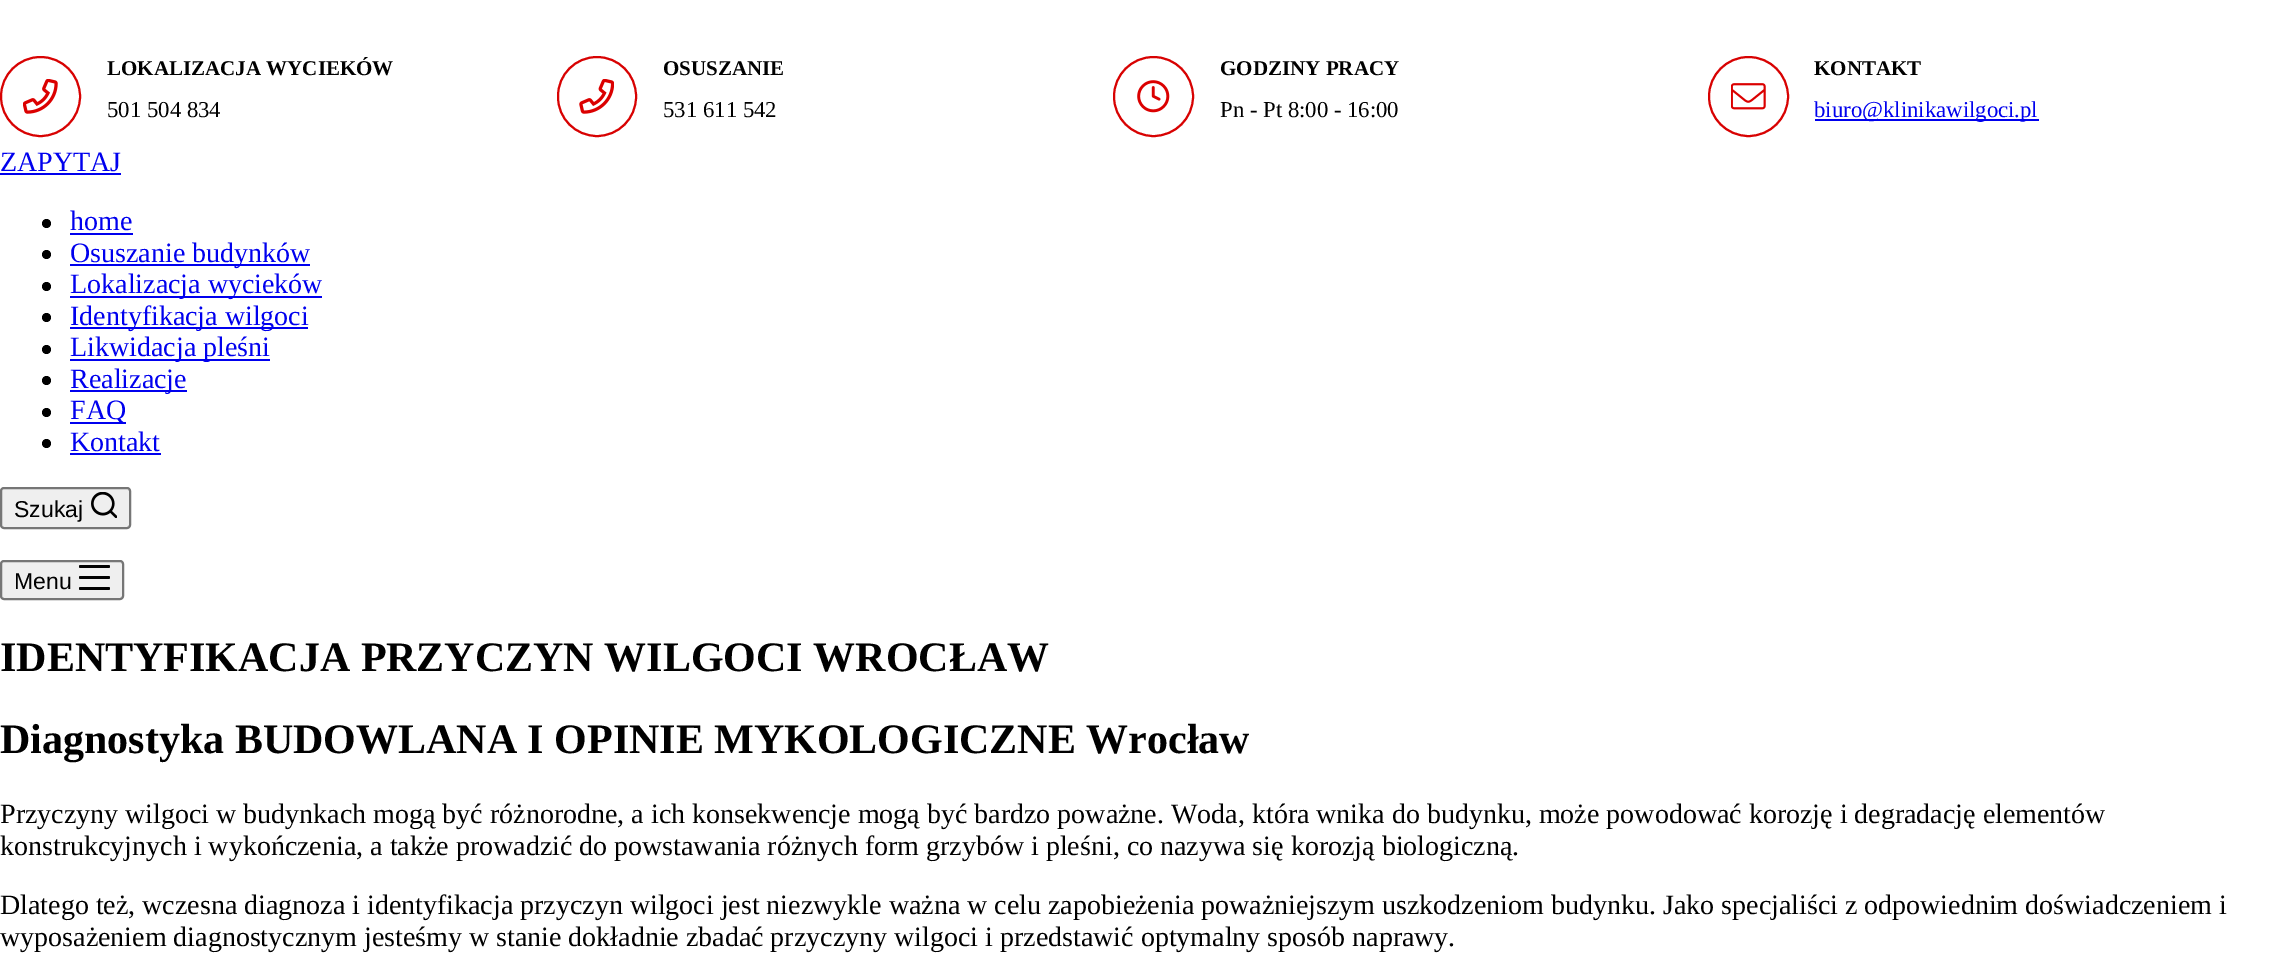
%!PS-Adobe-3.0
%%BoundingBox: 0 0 2278 959
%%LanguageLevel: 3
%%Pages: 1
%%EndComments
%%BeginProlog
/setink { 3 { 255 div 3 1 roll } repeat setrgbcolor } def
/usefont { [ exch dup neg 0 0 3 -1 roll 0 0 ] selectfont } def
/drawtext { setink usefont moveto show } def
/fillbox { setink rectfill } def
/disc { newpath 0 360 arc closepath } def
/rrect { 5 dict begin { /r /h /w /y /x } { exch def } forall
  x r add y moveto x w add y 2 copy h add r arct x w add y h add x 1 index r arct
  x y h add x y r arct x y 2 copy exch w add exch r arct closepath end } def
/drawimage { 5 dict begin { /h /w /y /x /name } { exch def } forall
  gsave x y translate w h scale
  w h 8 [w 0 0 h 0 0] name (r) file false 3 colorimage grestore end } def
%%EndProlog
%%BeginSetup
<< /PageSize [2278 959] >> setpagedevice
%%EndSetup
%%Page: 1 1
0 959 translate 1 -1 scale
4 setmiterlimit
0 0 2278 959 255 255 255 fillbox
216 2 2 setink
2 setlinewidth
40.5 96.5 39.5 disc stroke
(assets/img1.rgb) 23 79 35 35 drawimage
(LOKALIZACJA WYCIEKÓW) 107 75 /LiberationSerif-Bold 21 0 0 0 drawtext
(501 504 834) 107 117 /LiberationSerif-Regular 22.75 0 0 0 drawtext
216 2 2 setink
558 57 78 79 39 rrect stroke
(assets/img2.rgb) 579 79 35 35 drawimage
(OSUSZANIE) 663 75 /LiberationSerif-Bold 21 0 0 0 drawtext
(531 611 542) 663 117 /LiberationSerif-Regular 22.75 0 0 0 drawtext
216 2 2 setink
1153.5 96.5 39.5 disc stroke
(assets/img3.rgb) 1137 80 33 33 drawimage
(GODZINY PRACY) 1220 75 /LiberationSerif-Bold 21 0 0 0 drawtext
(Pn - Pt 8:00 - 16:00) 1220 117 /LiberationSerif-Regular 22.75 0 0 0 drawtext
216 2 2 setink
1748.5 96.5 39.5 disc stroke
(assets/img4.rgb) 1731 83 35 27 drawimage
(KONTAKT) 1814 75 /LiberationSerif-Bold 21 0 0 0 drawtext
1815 119 224 2 0 0 238 fillbox
(biuro@klinikawilgoci.pl) 1814 117 /LiberationSerif-Regular 22.75 0 0 238 drawtext
(ZAPYTAJ) 0 171 /LiberationSerif-Regular 28 0 0 238 drawtext
0 173 121 2 0 0 238 fillbox
0 0 0 setink
46.5 223.5 4.5 disc fill
(home) 70 230 /LiberationSerif-Regular 28 0 0 238 drawtext
70 233 63 2 0 0 238 fillbox
0 0 0 setink
46.5 254.5 4.5 disc fill
70 264 240 2 0 0 238 fillbox
(Osuszanie budynków) 70 262 /LiberationSerif-Regular 28 0 0 238 drawtext
0 0 0 setink
46.5 286.5 4.5 disc fill
70 296 252 2 0 0 238 fillbox
(Lokalizacja wycieków) 70 293 /LiberationSerif-Regular 28 0 0 238 drawtext
0 0 0 setink
46.5 317.5 4.5 disc fill
70 327 238 2 0 0 238 fillbox
(Identyfikacja wilgoci) 70 325 /LiberationSerif-Regular 28 0 0 238 drawtext
0 0 0 setink
46.5 349.5 4.5 disc fill
70 359 200 2 0 0 238 fillbox
(Likwidacja pleśni) 70 356 /LiberationSerif-Regular 28 0 0 238 drawtext
0 0 0 setink
46.5 380.5 4.5 disc fill
70 390 117 2 0 0 238 fillbox
(Realizacje) 70 388 /LiberationSerif-Regular 28 0 0 238 drawtext
0 0 0 setink
46.5 412.5 4.5 disc fill
70 422 56 2 0 0 238 fillbox
(FAQ) 70 419 /LiberationSerif-Regular 28 0 0 238 drawtext
0 0 0 setink
46.5 443.5 4.5 disc fill
(Kontakt) 70 451 /LiberationSerif-Regular 28 0 0 238 drawtext
70 453 91 2 0 0 238 fillbox
239 239 239 setink
1 488 129 40 3 rrect gsave fill grestore
118 118 118 setink
stroke
(Szukaj) 14 517 /LiberationSans-Regular 23 0 0 0 drawtext
(assets/img5.rgb) 91 492 26 26 drawimage
239 239 239 setink
1 561 122 38 3 rrect gsave fill grestore
118 118 118 setink
stroke
0 0 0 setink
79 565 31 3 1.5 rrect fill
(Menu) 14 589 /LiberationSans-Regular 23 0 0 0 drawtext
79 576 31 3 1.5 rrect fill
79 587 31 3 1.5 rrect fill
(IDENTYFIKACJA PRZYCZYN WILGOCI WROCŁAW) 0 671 /LiberationSerif-Bold 42 0 0 0 drawtext
(Diagnostyka BUDOWLANA I OPINIE MYKOLOGICZNE Wrocław) 0 753 /LiberationSerif-Bold 42 0 0 0 drawtext
(Przyczyny wilgoci w budynkach mogą być różnorodne, a ich konsekwencje mogą być bardzo poważne. Woda, która wnika do budynku, może powodować korozję i degradację elementów) 0 823 /LiberationSerif-Regular 28 0 0 0 drawtext
(konstrukcyjnych i wykończenia, a także prowadzić do powstawania różnych form grzybów i pleśni, co nazywa się korozją biologiczną.) 0 855 /LiberationSerif-Regular 28 0 0 0 drawtext
(Dlatego też, wczesna diagnoza i identyfikacja przyczyn wilgoci jest niezwykle ważna w celu zapobieżenia poważniejszym uszkodzeniom budynku. Jako specjaliści z odpowiednim doświadczeniem i) 0 914 /LiberationSerif-Regular 28 0 0 0 drawtext
(wyposażeniem diagnostycznym jesteśmy w stanie dokładnie zbadać przyczyny wilgoci i przedstawić optymalny sposób naprawy.) 0 946 /LiberationSerif-Regular 28 0 0 0 drawtext
showpage
%%EOF
